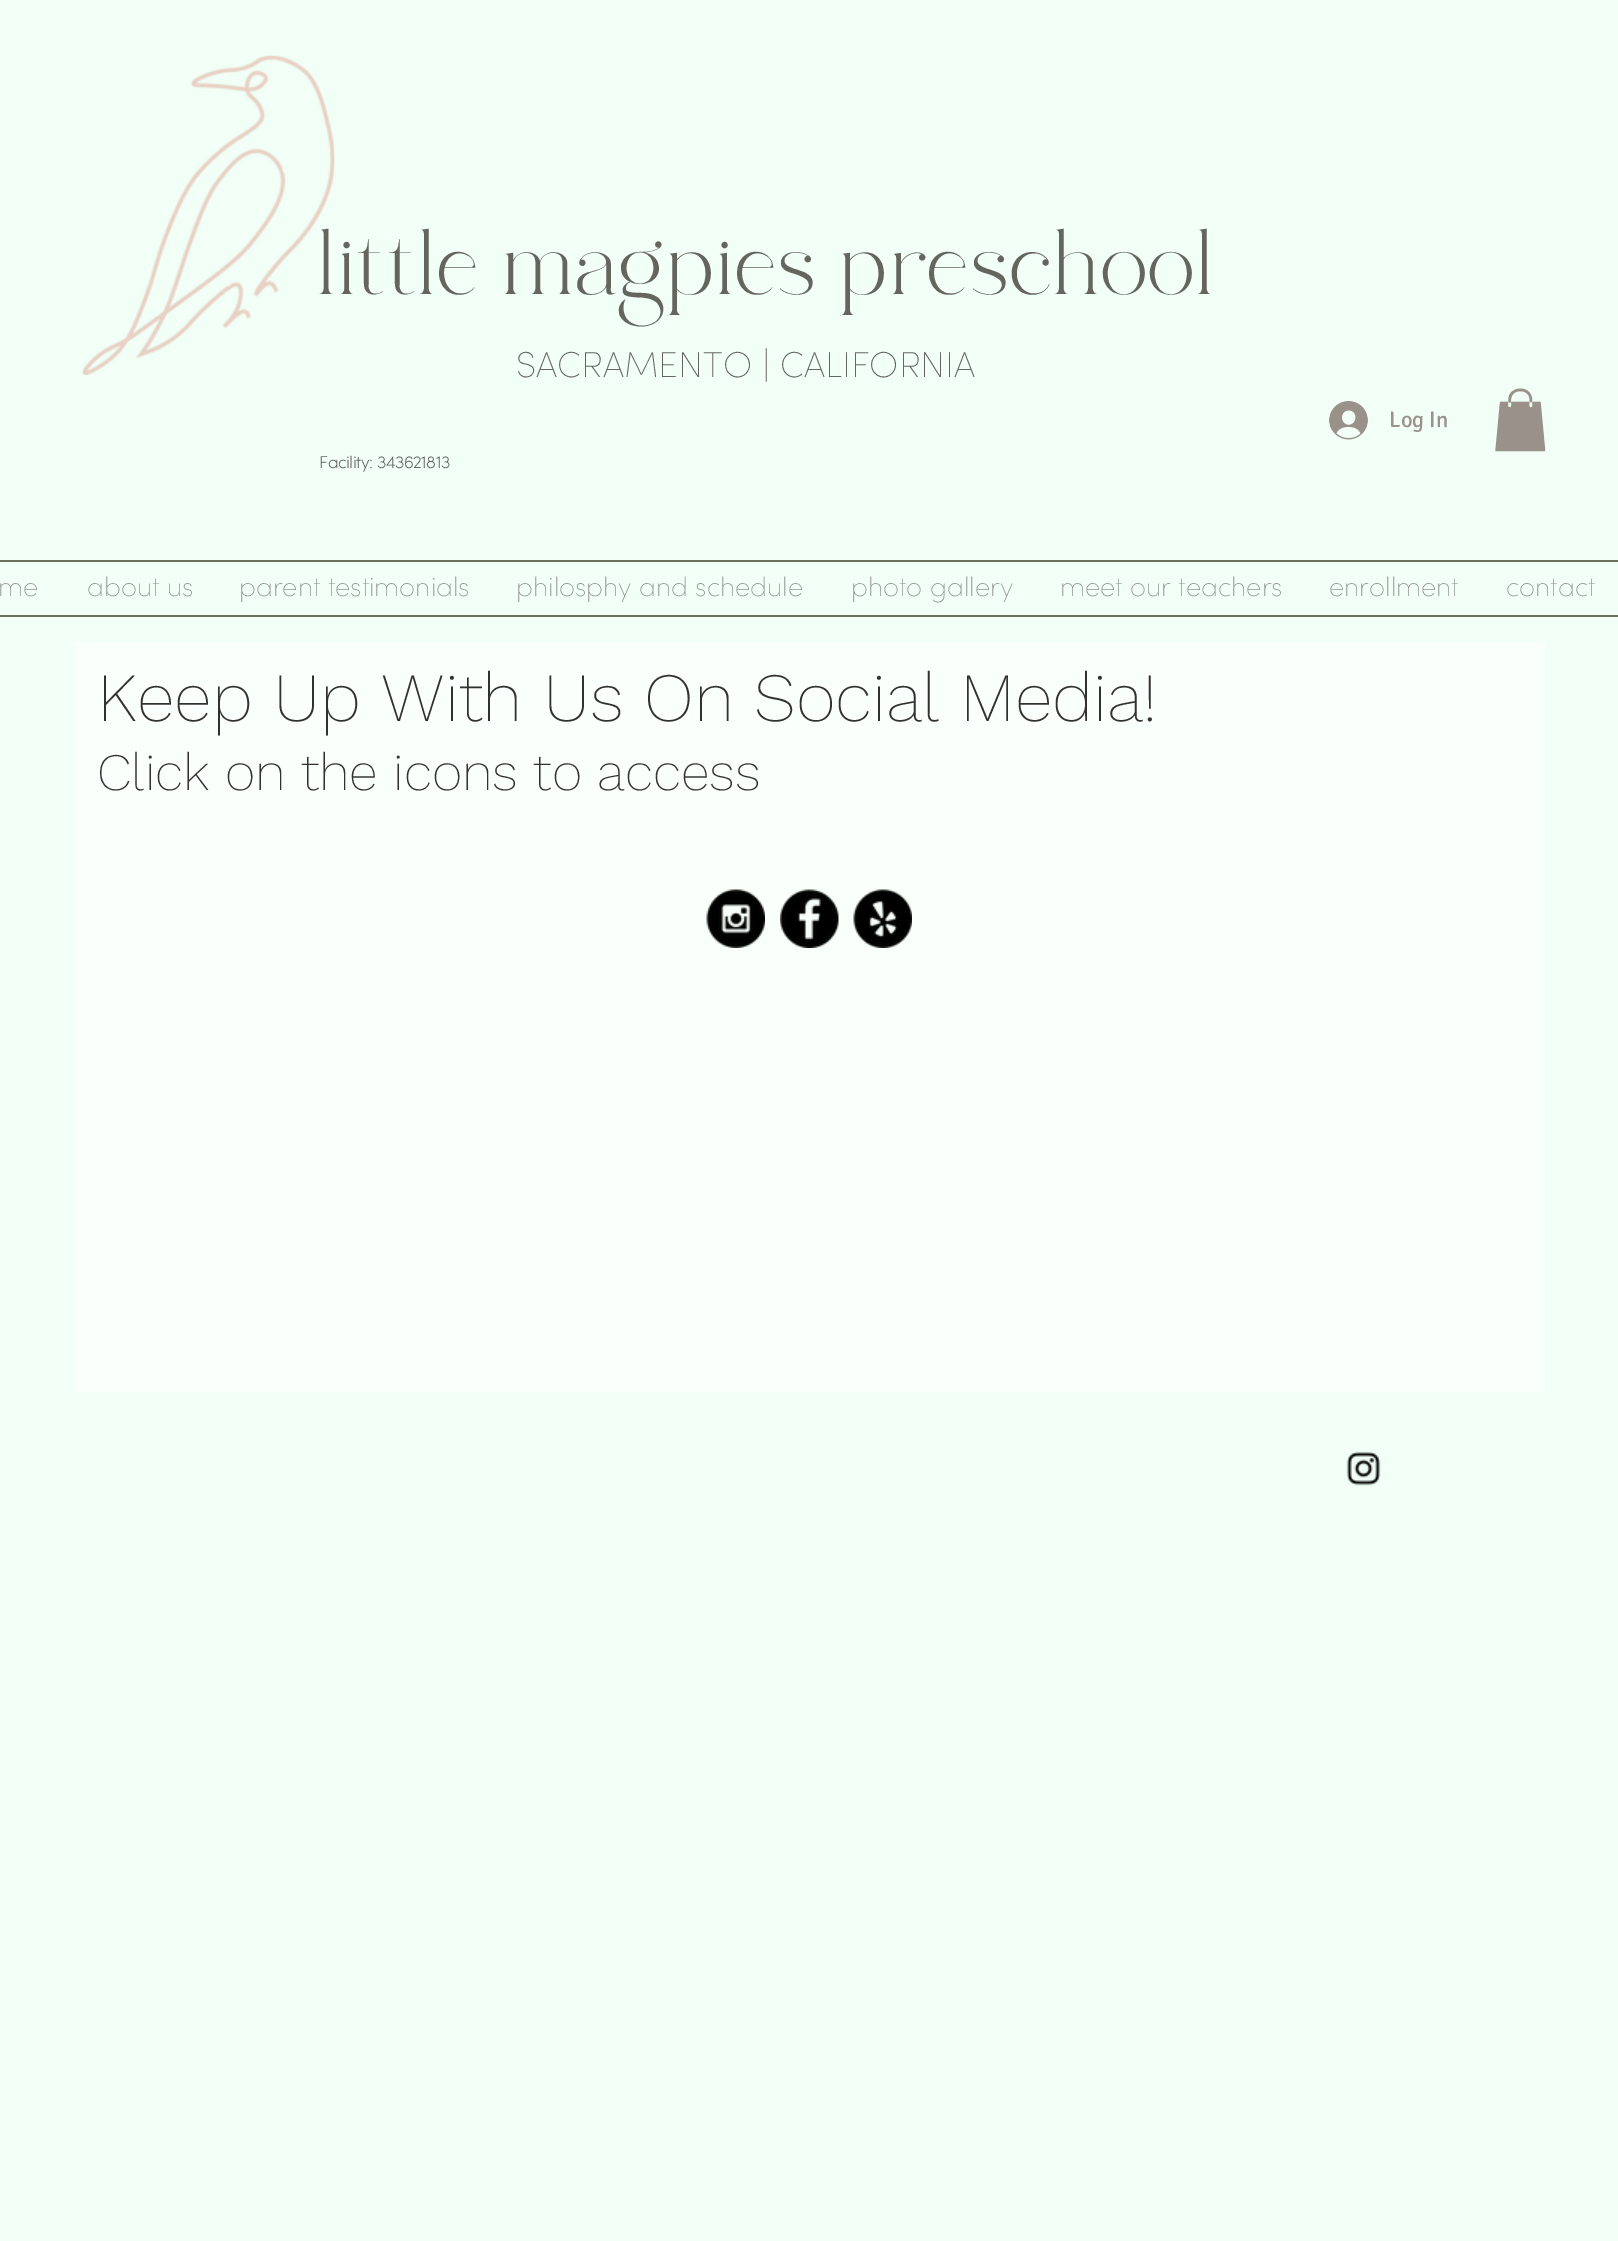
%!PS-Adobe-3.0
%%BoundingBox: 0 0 1618 2241
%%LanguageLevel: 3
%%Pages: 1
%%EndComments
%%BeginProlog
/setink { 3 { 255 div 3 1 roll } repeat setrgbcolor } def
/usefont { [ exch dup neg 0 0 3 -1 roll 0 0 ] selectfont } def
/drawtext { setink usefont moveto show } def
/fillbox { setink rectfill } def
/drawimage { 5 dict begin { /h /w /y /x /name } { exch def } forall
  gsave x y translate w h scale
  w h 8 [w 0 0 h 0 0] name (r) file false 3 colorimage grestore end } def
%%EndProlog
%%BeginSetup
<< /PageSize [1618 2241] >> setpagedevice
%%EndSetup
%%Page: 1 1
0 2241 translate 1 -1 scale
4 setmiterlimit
0 0 1618 2241 241 255 246 fillbox
(little magpies preschool) 319 294 /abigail-Regular 82.5 101 101 93 drawtext
(assets/img1.rgb) 82 55 253 320 drawimage
(SACRAMENTO | CALIFORNIA) 516 377 /Sofia-ExtraLight 36 101 101 93 drawtext
(Facility: 343621813) 319 468 /Sofia-Bold 16.5 101 101 93 drawtext
(assets/img2.rgb) 1329 401 39 39 drawimage
(Log In) 1389 427 /Signika-Regular 22.5 153 145 138 drawtext
(assets/img3.rgb) 1495 388 51 64 drawimage
0 560 1618 2 107 112 92 fillbox
0 615 1618 2 107 112 92 fillbox
(me) -2 596 /Sofia-ExtraLight 27 147 147 147 drawtext
(about us) 87 596 /Sofia-ExtraLight 27 147 147 147 drawtext
(parent testimonials) 239 596 /Sofia-ExtraLight 27 147 147 147 drawtext
(philosphy and schedule) 516 596 /Sofia-ExtraLight 27 147 147 147 drawtext
(photo gallery) 851 596 /Sofia-ExtraLight 27 147 147 147 drawtext
(meet our teachers) 1060 596 /Sofia-ExtraLight 27 147 147 147 drawtext
(enrollment) 1329 596 /Sofia-ExtraLight 27 147 147 147 drawtext
(contact) 1506 596 /Sofia-ExtraLight 27 147 147 147 drawtext
75 642 1470 750 249 255 250 fillbox
(Keep Up With Us On Social Media!) 97 721 /WorkSans-ExtraLight 69 49 49 49 drawtext
(Click on the icons to access) 97 790 /WorkSans-ExtraLight 52.5 49 49 49 drawtext
(assets/img4.rgb) 706 889 59 59 drawimage
(assets/img5.rgb) 780 889 59 59 drawimage
(assets/img6.rgb) 853 889 59 59 drawimage
(assets/img7.rgb) 1346 1451 35 35 drawimage
showpage
%%EOF
